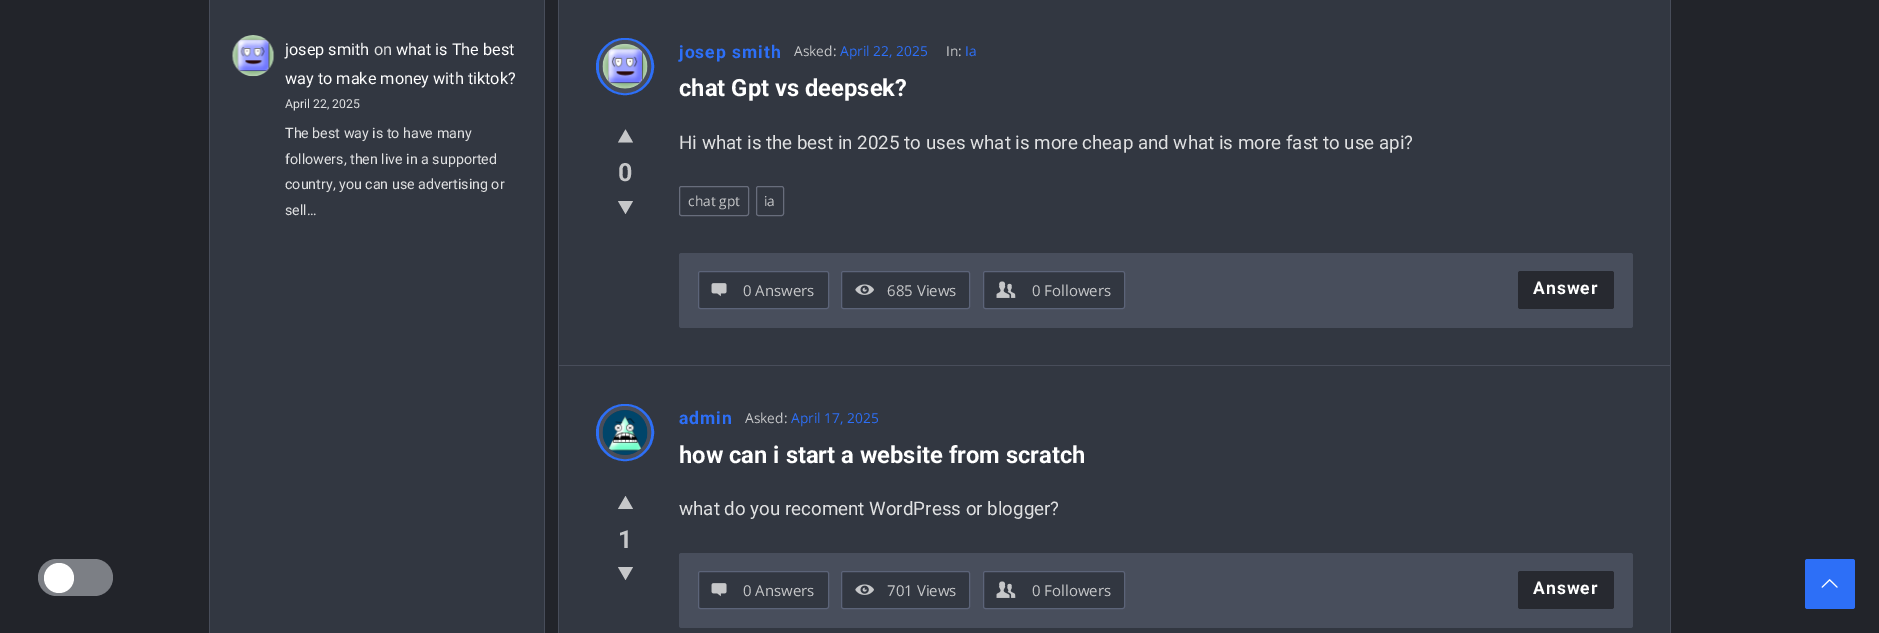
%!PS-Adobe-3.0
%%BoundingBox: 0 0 1879 633
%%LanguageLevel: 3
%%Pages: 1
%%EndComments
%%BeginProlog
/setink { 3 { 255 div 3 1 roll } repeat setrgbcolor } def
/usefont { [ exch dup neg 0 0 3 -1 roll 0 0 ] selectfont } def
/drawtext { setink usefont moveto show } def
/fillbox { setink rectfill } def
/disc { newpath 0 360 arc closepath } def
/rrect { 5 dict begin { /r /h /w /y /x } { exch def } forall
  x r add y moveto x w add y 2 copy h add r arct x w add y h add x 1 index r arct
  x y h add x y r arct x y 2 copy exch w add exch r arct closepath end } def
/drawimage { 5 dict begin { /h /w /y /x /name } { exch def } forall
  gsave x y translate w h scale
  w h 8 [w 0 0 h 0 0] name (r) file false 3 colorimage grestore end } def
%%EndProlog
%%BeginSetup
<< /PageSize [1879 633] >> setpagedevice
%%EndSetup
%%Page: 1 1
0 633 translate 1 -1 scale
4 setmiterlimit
0 0 1879 633 34 36 42 fillbox
124 127 133 setink
38 559 75 37 18.5 rrect fill
255 255 255 setink
59 578 15 disc fill
210 0 334 633 50 55 65 fillbox
544 0 1 633 72 77 90 fillbox
209 0 1 633 72 77 90 fillbox
(assets/img1.rgb) 232 35 43 42 drawimage
(josep smith) 285 55 /Roboto-Regular 16.25 255 255 255 drawtext
(on) 374 55 /Roboto-Regular 16.25 224 225 226 drawtext
(what is The best) 396 55 /Roboto-Regular 16.25 255 255 255 drawtext
(way to make money with tiktok?) 285 84 /Roboto-Regular 16.25 255 255 255 drawtext
(April 22, 2025) 285 108 /Roboto-Regular 12.25 224 225 226 drawtext
(The best way is to have many) 285 138 /Roboto-Regular 14.25 224 225 226 drawtext
(followers, then live in a supported) 285 164 /Roboto-Regular 14.25 224 225 226 drawtext
(country, you can use advertising or) 285 189 /Roboto-Regular 14.25 224 225 226 drawtext
(sell…) 285 215 /Roboto-Regular 14.25 224 225 226 drawtext
559 0 1111 633 50 55 65 fillbox
1670 0 1 633 72 77 90 fillbox
558 0 1 633 72 77 90 fillbox
559 365 1111 1 72 77 90 fillbox
45 111 247 setink
3 setlinewidth
597.5 39.5 55 54 27 rrect stroke
72 77 90 setink
4 setlinewidth
601 42 48 49 24 rrect stroke
(assets/img2.rgb) 602 43 46 46 drawimage
/Roboto-Bold 17.5 usefont
45 111 247 setink
679 58 moveto 1 0 (josep smith) ashow
(Asked:) 794 56 /OpenSans-Regular 13.75 198 199 201 drawtext
(April 22, 2025) 840 56 /OpenSans-Regular 13.75 45 111 247 drawtext
(In:) 946 56 /OpenSans-Regular 13.75 198 199 201 drawtext
(Ia) 965 56 /OpenSans-Regular 13.75 45 111 247 drawtext
(chat Gpt vs deepsek?) 679 96 /Roboto-Bold 23.75 255 255 255 drawtext
198 199 201 setink
618 142.5 moveto 625.5 129.5 lineto 633 142.5 lineto closepath fill
(0) 618 181 /Roboto-Bold 25 198 199 201 drawtext
633 201 moveto 625.5 214 lineto 618 201 lineto closepath fill
(Hi what is the best in 2025 to uses what is more cheap and what is more fast to use api?) 679 149 /Roboto-Regular 18.75 224 225 226 drawtext
104 109 124 setink
1 setlinewidth
679.5 186.5 69 29 2 rrect stroke
(chat gpt) 688 206 /OpenSans-Regular 13.75 198 199 201 drawtext
104 109 124 setink
756.5 186.5 27 29 2 rrect stroke
(ia) 764 206 /OpenSans-Regular 13.75 198 199 201 drawtext
72 78 92 setink
679 253 954 75 2.5 rrect fill
50 55 65 setink
698.5 271.5 130 37 2 rrect gsave fill grestore
92 100 121 setink
stroke
(assets/img3.rgb) 711 283 16 14 drawimage
(0 Answers) 743 296 /OpenSans-Regular 15 198 199 201 drawtext
50 55 65 setink
841.5 271.5 128 37 2 rrect gsave fill grestore
92 100 121 setink
stroke
(assets/img4.rgb) 855 284 19 11 drawimage
(685 Views) 887 296 /OpenSans-Regular 15 198 199 201 drawtext
50 55 65 setink
983.5 271.5 141 37 2 rrect gsave fill grestore
92 100 121 setink
stroke
(assets/img5.rgb) 996 281 20 17 drawimage
(0 Followers) 1032 296 /OpenSans-Regular 15 198 199 201 drawtext
39 41 48 setink
1518 271 96 38 2.5 rrect fill
/Roboto-Bold 17.5 usefont
255 255 255 setink
1533 294 moveto 1 0 (Answer) ashow
45 111 247 setink
3 setlinewidth
597.5 405.5 55 54 27 rrect stroke
72 77 90 setink
4 setlinewidth
601 408 48 49 24 rrect stroke
(assets/img6.rgb) 602 410 46 45 drawimage
45 111 247 setink
679 424 moveto 1 0 (admin) ashow
(Asked:) 745 423 /OpenSans-Regular 13.75 198 199 201 drawtext
(April 17, 2025) 791 423 /OpenSans-Regular 13.75 45 111 247 drawtext
(how can i start a website from scratch) 679 463 /Roboto-Bold 23.75 255 255 255 drawtext
198 199 201 setink
618 509 moveto 625.5 496 lineto 633 509 lineto closepath fill
(1) 618 548 /Roboto-Bold 25 198 199 201 drawtext
633 567 moveto 625.5 580 lineto 618 567 lineto closepath fill
(what do you recoment WordPress or blogger?) 679 515 /Roboto-Regular 18.75 224 225 226 drawtext
72 78 92 setink
679 553 954 75 2.5 rrect fill
50 55 65 setink
698.5 571.5 130 37 2 rrect gsave fill grestore
92 100 121 setink
1 setlinewidth
stroke
(assets/img3.rgb) 711 583 16 14 drawimage
(0 Answers) 743 596 /OpenSans-Regular 15 198 199 201 drawtext
50 55 65 setink
841.5 571.5 128 37 2 rrect gsave fill grestore
92 100 121 setink
stroke
(assets/img4.rgb) 855 584 19 11 drawimage
(701 Views) 887 596 /OpenSans-Regular 15 198 199 201 drawtext
50 55 65 setink
983.5 571.5 141 37 2 rrect gsave fill grestore
92 100 121 setink
stroke
(assets/img5.rgb) 996 581 20 17 drawimage
(0 Followers) 1032 596 /OpenSans-Regular 15 198 199 201 drawtext
39 41 48 setink
1518 571 96 38 2.5 rrect fill
/Roboto-Bold 17.5 usefont
255 255 255 setink
1533 594 moveto 1 0 (Answer) ashow
45 111 247 setink
1805 559 50 50 2.5 rrect fill
(assets/img7.rgb) 1821 579 17 9 drawimage
showpage
%%EOF
